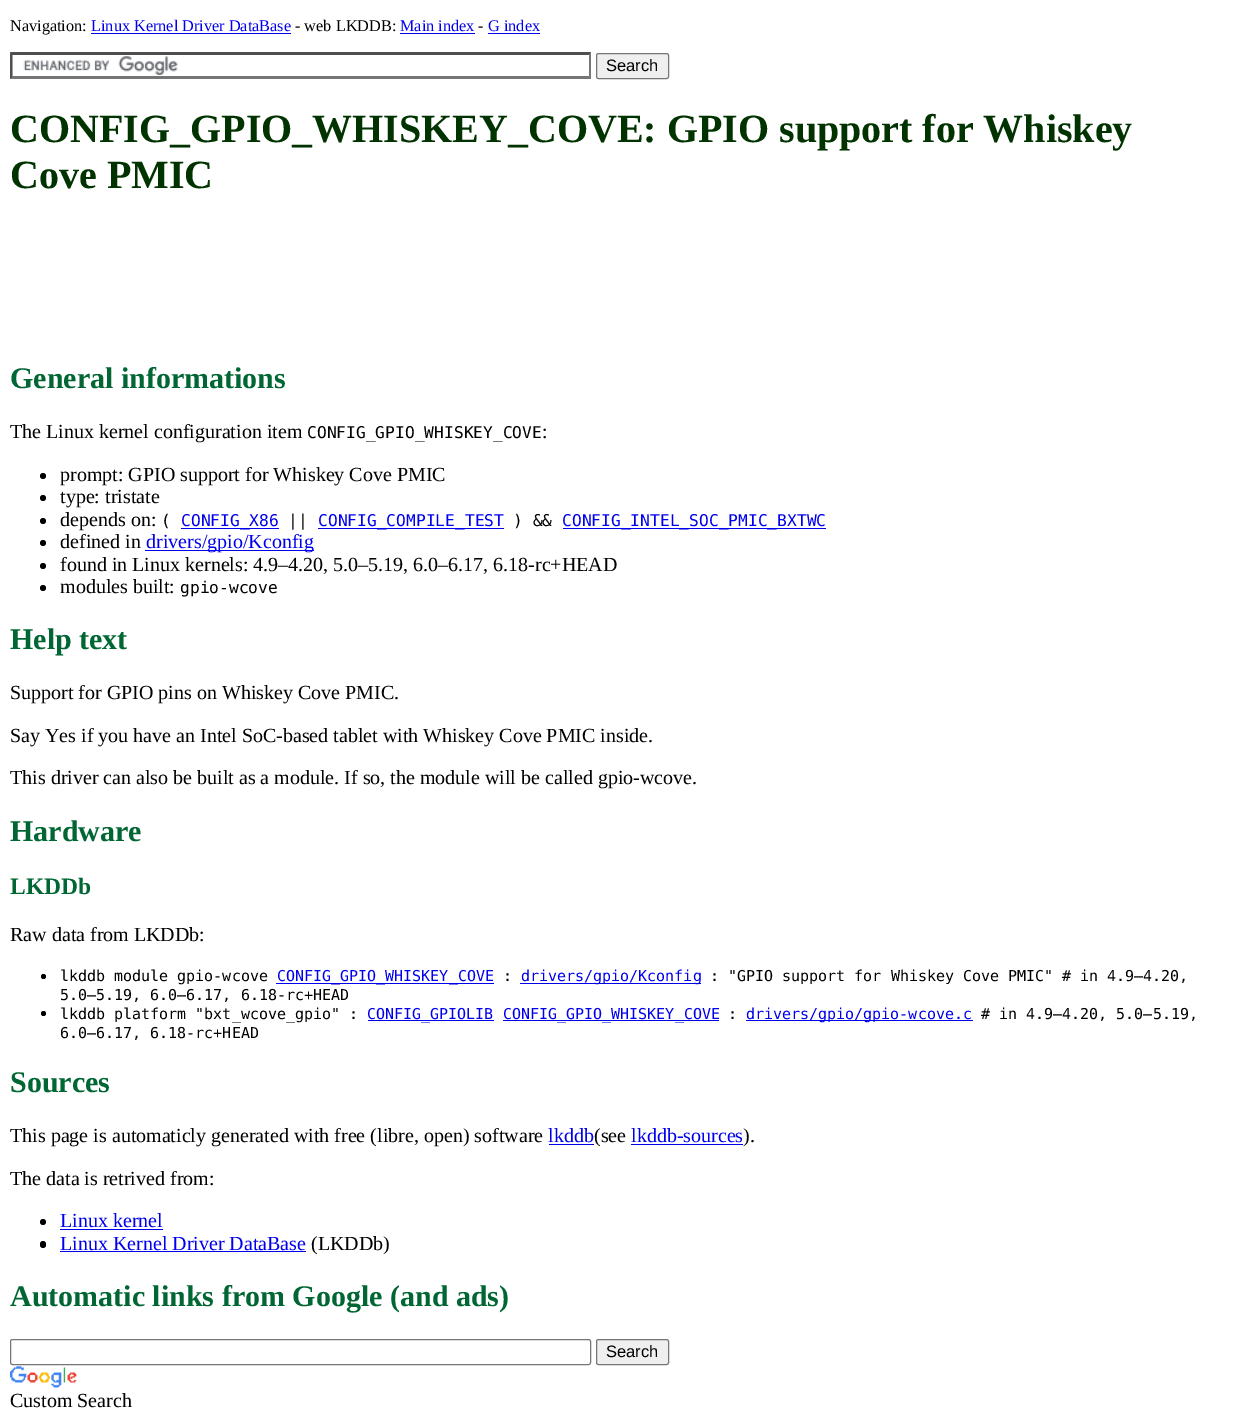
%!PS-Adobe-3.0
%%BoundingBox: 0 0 1235 1423
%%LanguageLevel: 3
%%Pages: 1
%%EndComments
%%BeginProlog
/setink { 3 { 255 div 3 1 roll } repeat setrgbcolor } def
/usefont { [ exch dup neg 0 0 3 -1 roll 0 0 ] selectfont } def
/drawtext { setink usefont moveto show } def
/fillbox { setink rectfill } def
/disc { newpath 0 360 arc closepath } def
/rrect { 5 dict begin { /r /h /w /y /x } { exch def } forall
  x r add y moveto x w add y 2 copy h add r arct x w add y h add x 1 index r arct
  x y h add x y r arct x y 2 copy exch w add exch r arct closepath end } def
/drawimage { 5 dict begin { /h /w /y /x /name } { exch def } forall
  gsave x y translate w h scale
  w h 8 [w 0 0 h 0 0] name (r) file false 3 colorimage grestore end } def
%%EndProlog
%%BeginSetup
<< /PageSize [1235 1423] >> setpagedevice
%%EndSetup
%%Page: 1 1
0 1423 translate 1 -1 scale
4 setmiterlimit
0 0 1235 1423 255 255 255 fillbox
(Navigation:) 10 31 /LiberationSerif-Regular 16.25 0 0 0 drawtext
(Linux Kernel Driver DataBase) 91 31 /LiberationSerif-Regular 16.25 0 0 238 drawtext
91 33 200 1 0 0 238 fillbox
(- web LKDDB:) 295 31 /LiberationSerif-Regular 16.25 0 0 0 drawtext
(Main index) 400 31 /LiberationSerif-Regular 16.25 0 0 238 drawtext
400 33 75 1 0 0 238 fillbox
(-) 478 31 /LiberationSerif-Regular 16.25 0 0 0 drawtext
(G index) 488 31 /LiberationSerif-Regular 16.25 0 0 238 drawtext
488 33 52 1 0 0 238 fillbox
(assets/img1.rgb) 23 56 155 19 drawimage
79 79 79 setink
10 52 moveto 591 52 lineto 589 55 lineto 12 55 lineto closepath fill
118 118 118 setink
591 52.5 moveto 591 79 lineto 589 76 lineto 589 55 lineto closepath fill
591 79 moveto 10 79 lineto 12 76 lineto 589 76 lineto closepath fill
79 79 79 setink
10 79 moveto 10 52.5 lineto 12.5 55 lineto 12.5 76 lineto closepath fill
239 239 239 setink
596.5 53.5 72 25 2 rrect gsave fill grestore
118 118 118 setink
stroke
(Search) 606 71 /LiberationSans-Regular 16.5 0 0 0 drawtext
(CONFIG_GPIO_WHISKEY_COVE: GPIO support for Whiskey) 10 142 /LiberationSerif-Bold 40 0 51 0 drawtext
(Cove PMIC) 10 188 /LiberationSerif-Bold 40 0 51 0 drawtext
(General informations) 10 388 /LiberationSerif-Bold 30 0 102 51 drawtext
(The Linux kernel configuration item) 10 438 /LiberationSerif-Regular 20 0 0 0 drawtext
(CONFIG_GPIO_WHISKEY_COVE) 307 438 /DejaVuSansMono-Regular 16.25 0 0 0 drawtext
(:) 542 438 /LiberationSerif-Regular 20 0 0 0 drawtext
43 476 3 disc fill
(prompt: GPIO support for Whiskey Cove PMIC) 60 481 /LiberationSerif-Regular 20 0 0 0 drawtext
43 498 3 disc fill
(type: tristate) 60 503 /LiberationSerif-Regular 20 0 0 0 drawtext
43 521 3 disc fill
(depends on:) 60 526 /LiberationSerif-Regular 20 0 0 0 drawtext
(\() 161 526 /DejaVuSansMono-Regular 16.25 0 0 0 drawtext
181 528 98 1 0 0 238 fillbox
(CONFIG_X86) 181 526 /DejaVuSansMono-Regular 16.25 0 0 238 drawtext
(||) 288 526 /DejaVuSansMono-Regular 16.25 0 0 0 drawtext
318 528 186 1 0 0 238 fillbox
(CONFIG_COMPILE_TEST) 318 526 /DejaVuSansMono-Regular 16.25 0 0 238 drawtext
(\) &&) 513 526 /DejaVuSansMono-Regular 16.25 0 0 0 drawtext
563 528 263 1 0 0 238 fillbox
(CONFIG_INTEL_SOC_PMIC_BXTWC) 562 526 /DejaVuSansMono-Regular 16.25 0 0 238 drawtext
0 0 0 setink
43 543 3 disc fill
(defined in) 60 548 /LiberationSerif-Regular 20 0 0 0 drawtext
145 550 169 1 0 0 238 fillbox
(drivers/gpio/Kconfig) 146 548 /LiberationSerif-Regular 20 0 0 238 drawtext
0 0 0 setink
43 566 3 disc fill
(found in Linux kernels: 4.9–4.20, 5.0–5.19, 6.0–6.17, 6.18-rc+HEAD) 60 571 /LiberationSerif-Regular 20 0 0 0 drawtext
43 588 3 disc fill
(modules built:) 60 593 /LiberationSerif-Regular 20 0 0 0 drawtext
(gpio-wcove) 180 593 /DejaVuSansMono-Regular 16.25 0 0 0 drawtext
(Help text) 10 649 /LiberationSerif-Bold 30 0 102 51 drawtext
(Support for GPIO pins on Whiskey Cove PMIC.) 10 699 /LiberationSerif-Regular 20 0 0 0 drawtext
(Say Yes if you have an Intel SoC-based tablet with Whiskey Cove PMIC inside.) 10 742 /LiberationSerif-Regular 20 0 0 0 drawtext
(This driver can also be built as a module. If so, the module will be called gpio-wcove.) 10 784 /LiberationSerif-Regular 20 0 0 0 drawtext
(Hardware) 10 841 /LiberationSerif-Bold 30 0 102 51 drawtext
(LKDDb) 10 894 /LiberationSerif-Bold 23.5 0 102 51 drawtext
(Raw data from LKDDb:) 10 941 /LiberationSerif-Regular 20 0 0 0 drawtext
43.5 976.5 2.5 disc fill
(lkddb module gpio-wcove) 60 981 /DejaVuSansMono-Regular 15 0 0 0 drawtext
276 983 218 1 0 0 238 fillbox
(CONFIG_GPIO_WHISKEY_COVE) 277 981 /DejaVuSansMono-Regular 15 0 0 238 drawtext
(:) 503 981 /DejaVuSansMono-Regular 15 0 0 0 drawtext
520 983 181 1 0 0 238 fillbox
(drivers/gpio/Kconfig) 521 981 /DejaVuSansMono-Regular 15 0 0 238 drawtext
(: "GPIO support for Whiskey Cove PMIC" # in 4.9–4.20,) 710 981 /DejaVuSansMono-Regular 15 0 0 0 drawtext
(5.0–5.19, 6.0–6.17, 6.18-rc+HEAD) 60 1000 /DejaVuSansMono-Regular 15 0 0 0 drawtext
43.5 1013.5 2.5 disc fill
(lkddb platform "bxt_wcove_gpio" :) 60 1019 /DejaVuSansMono-Regular 15 0 0 0 drawtext
368 1020 126 1 0 0 238 fillbox
(CONFIG_GPIOLIB) 367 1019 /DejaVuSansMono-Regular 15 0 0 238 drawtext
503 1020 216 1 0 0 238 fillbox
(CONFIG_GPIO_WHISKEY_COVE) 503 1019 /DejaVuSansMono-Regular 15 0 0 238 drawtext
(:) 728 1019 /DejaVuSansMono-Regular 15 0 0 0 drawtext
746 1020 227 1 0 0 238 fillbox
(drivers/gpio/gpio-wcove.c) 746 1019 /DejaVuSansMono-Regular 15 0 0 238 drawtext
(# in 4.9–4.20, 5.0–5.19,) 981 1019 /DejaVuSansMono-Regular 15 0 0 0 drawtext
(6.0–6.17, 6.18-rc+HEAD) 60 1038 /DejaVuSansMono-Regular 15 0 0 0 drawtext
(Sources) 10 1092 /LiberationSerif-Bold 30 0 102 51 drawtext
(This page is automaticly generated with free \(libre, open\) software) 10 1142 /LiberationSerif-Regular 20 0 0 0 drawtext
(lkddb) 548 1142 /LiberationSerif-Regular 20 0 0 238 drawtext
549 1144 45 1 0 0 238 fillbox
(\(see) 594 1142 /LiberationSerif-Regular 20 0 0 0 drawtext
(lkddb-sources) 631 1142 /LiberationSerif-Regular 20 0 0 238 drawtext
631 1144 112 1 0 0 238 fillbox
(\).) 743 1142 /LiberationSerif-Regular 20 0 0 0 drawtext
(The data is retrived from:) 10 1185 /LiberationSerif-Regular 20 0 0 0 drawtext
43 1222 3 disc fill
(Linux kernel) 60 1227 /LiberationSerif-Regular 20 0 0 238 drawtext
60 1229 103 1 0 0 238 fillbox
0 0 0 setink
40 1241 6 7 3 rrect fill
(Linux Kernel Driver DataBase) 60 1250 /LiberationSerif-Regular 20 0 0 238 drawtext
60 1251 246 1 0 0 238 fillbox
(\(LKDDb\)) 311 1250 /LiberationSerif-Regular 20 0 0 0 drawtext
(Automatic links from Google \(and ads\)) 10 1306 /LiberationSerif-Bold 30 0 102 51 drawtext
118 118 118 setink
10.5 1339.5 580 25 2 rrect stroke
239 239 239 setink
596.5 1339.5 72 25 2 rrect gsave fill grestore
118 118 118 setink
stroke
(Search) 606 1357 /LiberationSans-Regular 16.5 0 0 0 drawtext
(assets/img2.rgb) 10 1366 67 22 drawimage
(Custom Search) 10 1407 /LiberationSerif-Regular 20 0 0 0 drawtext
showpage
%%EOF
